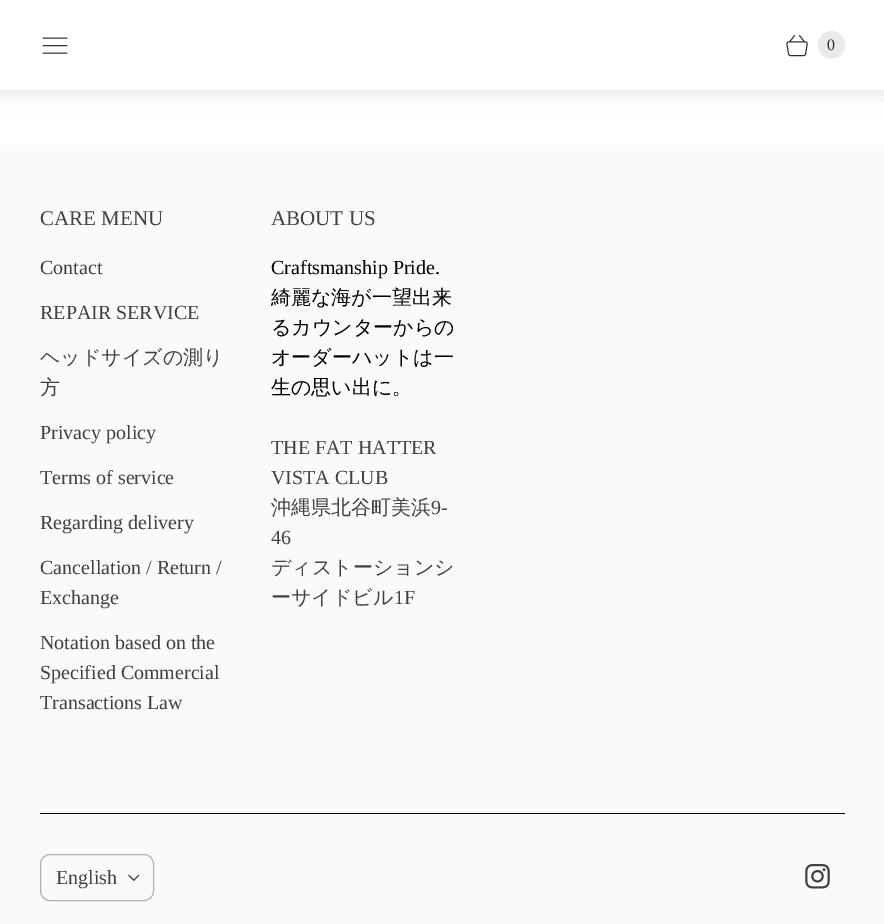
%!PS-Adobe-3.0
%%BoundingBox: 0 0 884 924
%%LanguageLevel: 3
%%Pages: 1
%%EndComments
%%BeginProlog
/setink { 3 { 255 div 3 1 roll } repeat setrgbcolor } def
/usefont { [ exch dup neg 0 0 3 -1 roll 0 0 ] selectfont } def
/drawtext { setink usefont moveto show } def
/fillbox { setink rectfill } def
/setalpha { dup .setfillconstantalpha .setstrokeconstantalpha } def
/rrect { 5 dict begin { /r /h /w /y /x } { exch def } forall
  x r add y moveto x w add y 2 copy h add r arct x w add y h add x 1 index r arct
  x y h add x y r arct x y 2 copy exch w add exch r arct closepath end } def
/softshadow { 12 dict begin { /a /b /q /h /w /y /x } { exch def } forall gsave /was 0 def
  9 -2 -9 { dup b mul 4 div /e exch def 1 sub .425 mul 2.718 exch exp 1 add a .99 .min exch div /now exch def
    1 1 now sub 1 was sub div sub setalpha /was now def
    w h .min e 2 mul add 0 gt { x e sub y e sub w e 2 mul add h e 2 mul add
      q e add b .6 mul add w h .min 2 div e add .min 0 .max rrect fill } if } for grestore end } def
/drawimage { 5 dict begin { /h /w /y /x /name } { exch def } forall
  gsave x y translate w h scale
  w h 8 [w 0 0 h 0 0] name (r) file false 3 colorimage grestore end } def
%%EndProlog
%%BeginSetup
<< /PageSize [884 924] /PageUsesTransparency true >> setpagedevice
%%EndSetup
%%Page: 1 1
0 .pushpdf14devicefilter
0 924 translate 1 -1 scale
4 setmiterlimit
0 0 884 924 255 255 255 fillbox
0 0 0 setink
-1 1 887 93 0 10 0.1 softshadow
0 0 884 90 255 255 255 fillbox
(assets/img1.rgb) 42 37 26 17 drawimage
(assets/img2.rgb) 786 35 22 22 drawimage
234 234 234 setink
818 31 27 28 13.5 rrect fill
(0) 827 50 /LiberationSerif-Regular 16 48 48 48 drawtext
0 145 884 779 250 250 250 fillbox
(CARE MENU) 40 225 /LiberationSerif-Regular 21 64 64 64 drawtext
(Contact) 40 274 /LiberationSerif-Regular 20 64 64 64 drawtext
(REPAIR SERVICE) 40 319 /LiberationSerif-Regular 20 64 64 64 drawtext
(ヘッドサイズの測り) 40 364 /WenQuanYiZenHei-Medium 20 64 64 64 drawtext
(方) 40 394 /WenQuanYiZenHei-Medium 20 64 64 64 drawtext
(Privacy policy) 40 439 /LiberationSerif-Regular 20 64 64 64 drawtext
(Terms of service) 40 484 /LiberationSerif-Regular 20 64 64 64 drawtext
(Regarding delivery) 40 529 /LiberationSerif-Regular 20 64 64 64 drawtext
(Cancellation / Return /) 40 574 /LiberationSerif-Regular 20 64 64 64 drawtext
(Exchange) 40 604 /LiberationSerif-Regular 20 64 64 64 drawtext
(Notation based on the) 40 649 /LiberationSerif-Regular 20 64 64 64 drawtext
(Specified Commercial) 40 679 /LiberationSerif-Regular 20 64 64 64 drawtext
(Transactions Law) 40 709 /LiberationSerif-Regular 20 64 64 64 drawtext
(ABOUT US) 271 225 /LiberationSerif-Regular 21 64 64 64 drawtext
(Craftsmanship Pride.) 271 274 /LiberationSerif-Regular 20 0 0 0 drawtext
(綺麗な海が一望出来) 271 304 /WenQuanYiZenHei-Medium 20 0 0 0 drawtext
(るカウンターからの) 271 334 /WenQuanYiZenHei-Medium 20 0 0 0 drawtext
(オーダーハットは一) 271 364 /WenQuanYiZenHei-Medium 20 0 0 0 drawtext
(生の思い出に。) 271 394 /WenQuanYiZenHei-Medium 20 0 0 0 drawtext
(THE FAT HATTER) 271 454 /LiberationSerif-Regular 20 64 64 64 drawtext
(VISTA CLUB) 271 484 /LiberationSerif-Regular 20 64 64 64 drawtext
(沖縄県北谷町美浜) 271 514 /WenQuanYiZenHei-Medium 20 64 64 64 drawtext
(9-) 431 514 /LiberationSerif-Regular 20 64 64 64 drawtext
(46) 271 544 /LiberationSerif-Regular 20 64 64 64 drawtext
(ディストーションシ) 271 574 /WenQuanYiZenHei-Medium 20 64 64 64 drawtext
(ーサイドビル) 271 604 /WenQuanYiZenHei-Medium 20 64 64 64 drawtext
(1F) 394 604 /LiberationSerif-Regular 20 64 64 64 drawtext
40 813 805 1 0 0 0 fillbox
176 176 176 setink
40.5 854.5 113 46 9.5 rrect stroke
(English) 56 884 /LiberationSerif-Regular 20 64 64 64 drawtext
(assets/img3.rgb) 128 874 11 7 drawimage
(assets/img4.rgb) 805 864 25 25 drawimage
.poppdf14devicefilter showpage
%%EOF
